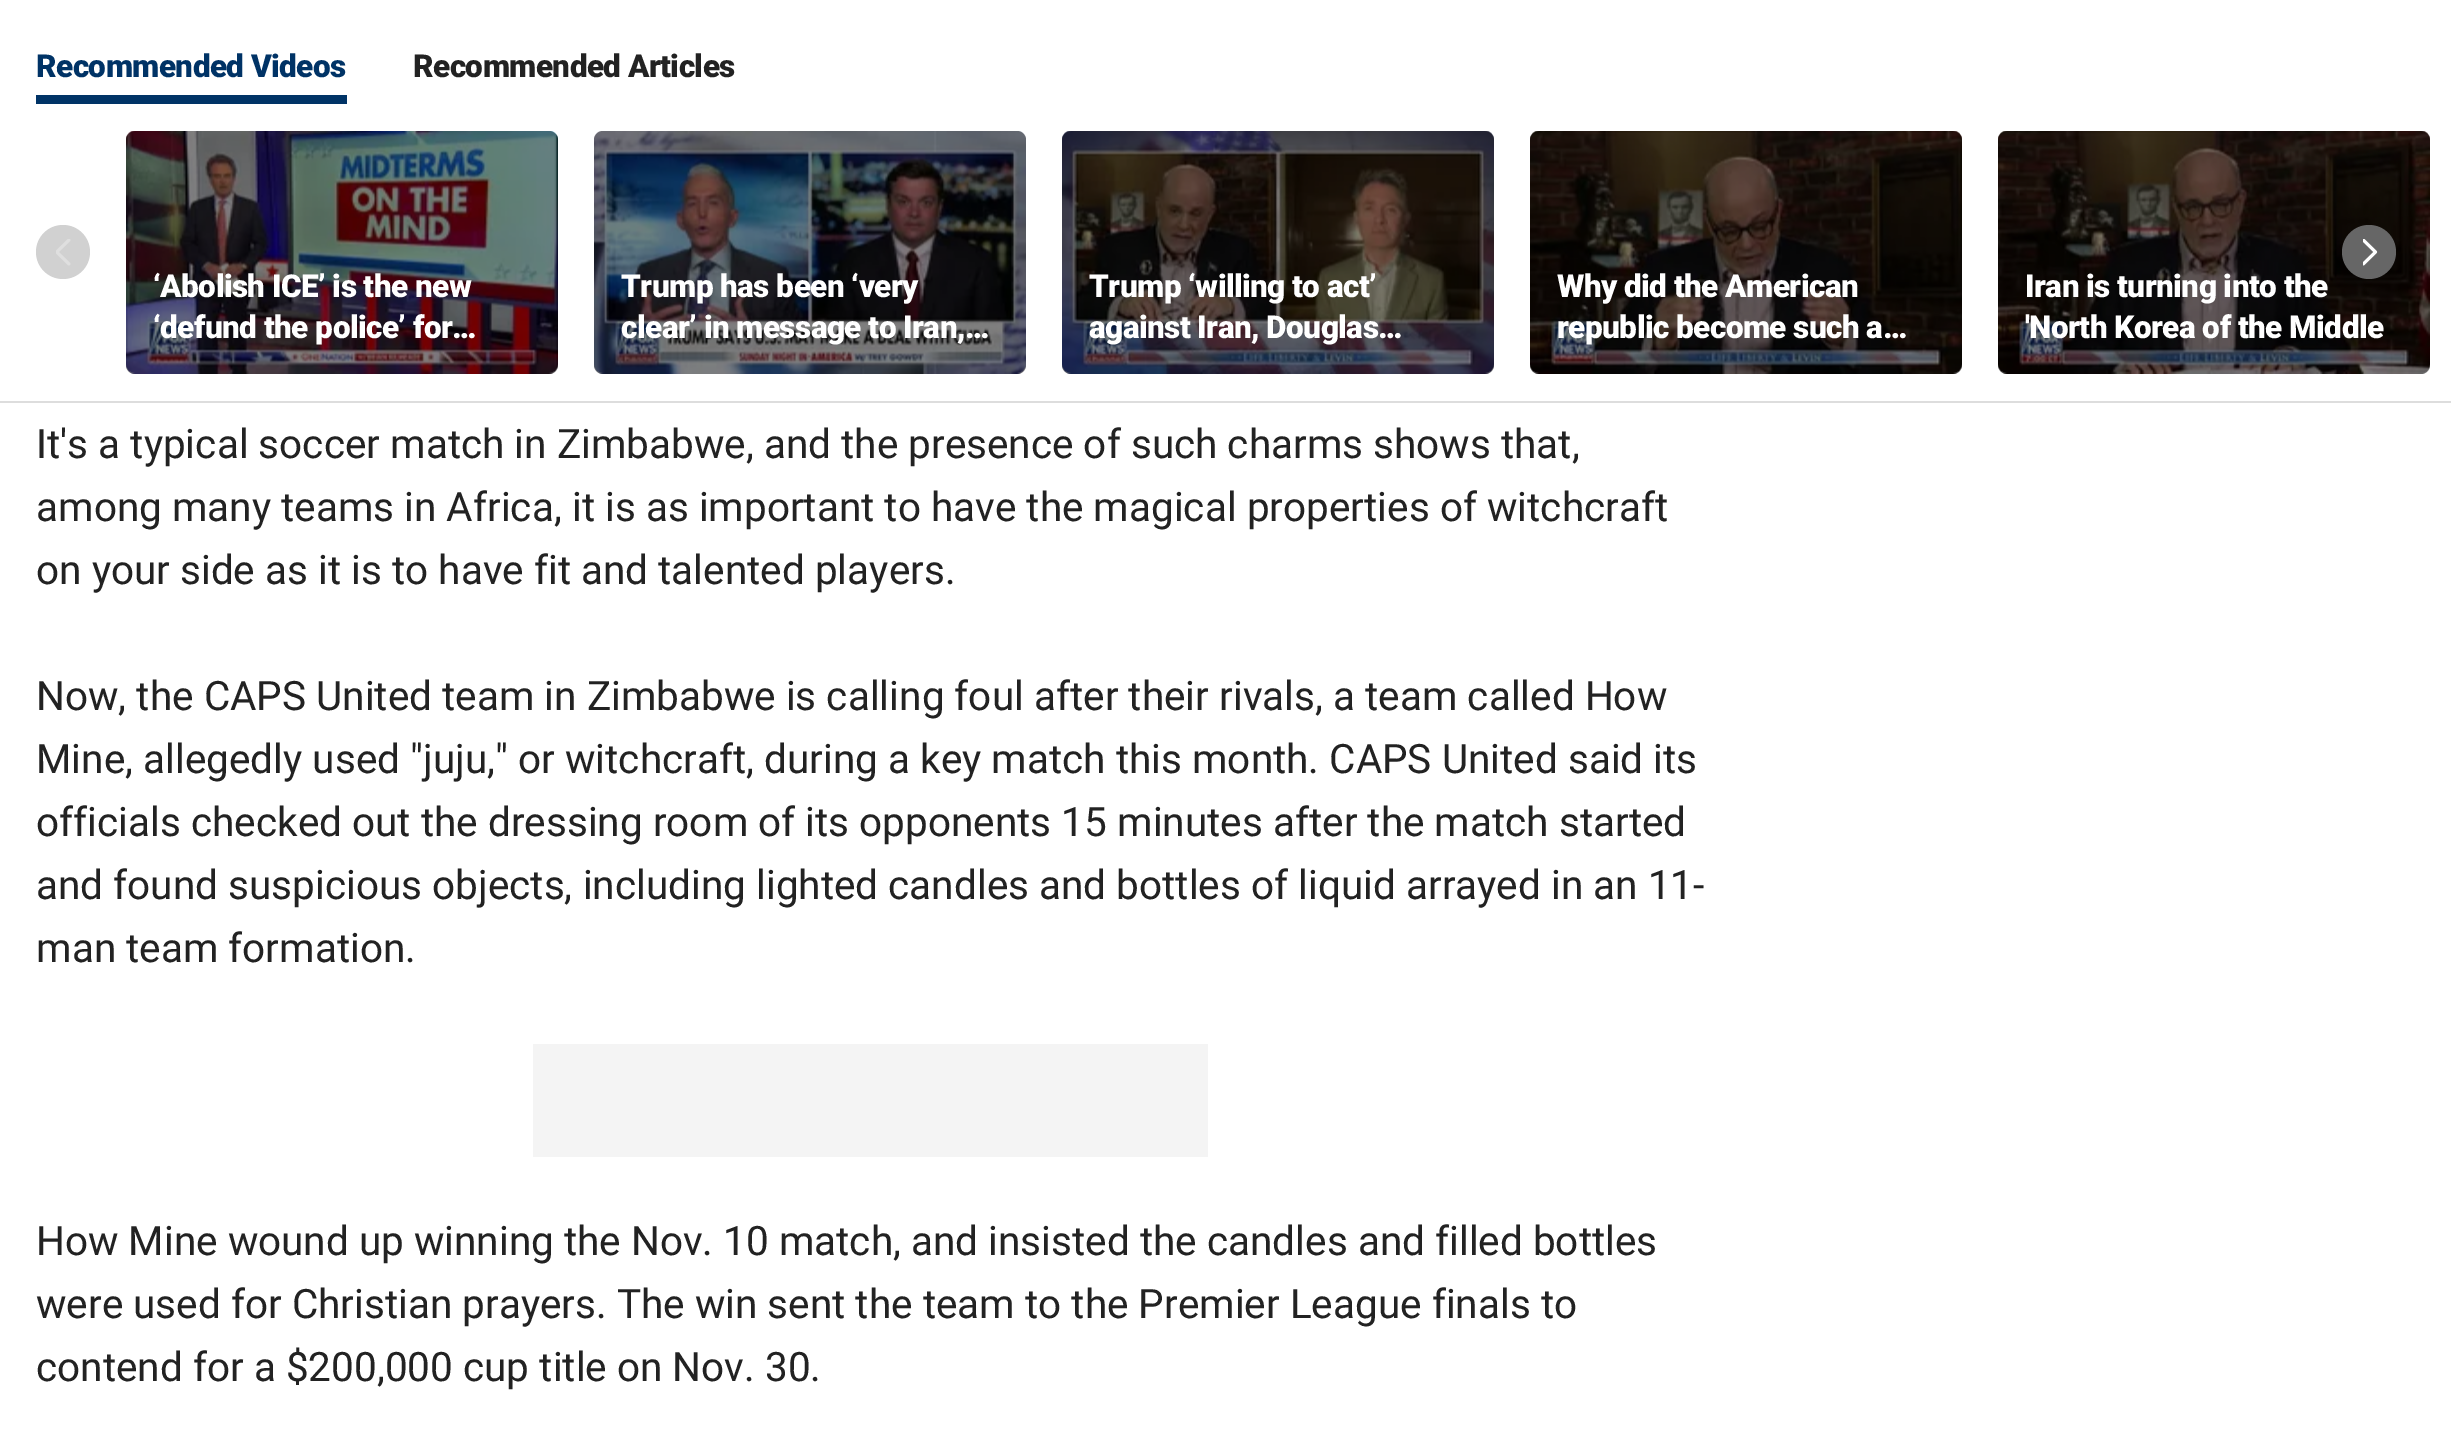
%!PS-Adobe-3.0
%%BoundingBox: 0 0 2451 1436
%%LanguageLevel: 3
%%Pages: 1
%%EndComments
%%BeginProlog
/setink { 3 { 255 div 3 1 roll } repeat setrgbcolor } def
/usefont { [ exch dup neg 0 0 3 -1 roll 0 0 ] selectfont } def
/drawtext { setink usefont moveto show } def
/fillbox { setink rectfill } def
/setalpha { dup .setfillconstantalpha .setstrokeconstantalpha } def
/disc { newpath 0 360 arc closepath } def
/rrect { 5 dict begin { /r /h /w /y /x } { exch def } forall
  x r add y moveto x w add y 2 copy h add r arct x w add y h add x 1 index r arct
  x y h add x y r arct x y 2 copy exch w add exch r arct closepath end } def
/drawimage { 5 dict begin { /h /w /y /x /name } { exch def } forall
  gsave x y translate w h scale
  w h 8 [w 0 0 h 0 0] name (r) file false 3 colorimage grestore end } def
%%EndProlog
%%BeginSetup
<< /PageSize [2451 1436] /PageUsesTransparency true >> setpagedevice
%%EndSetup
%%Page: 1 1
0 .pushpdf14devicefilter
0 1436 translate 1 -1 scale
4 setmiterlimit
0 0 2451 1436 255 255 255 fillbox
/Roboto-Black 31.5 usefont
0 51 102 setink
36 77 moveto -0.55 0 (Recommended Videos) ashow
36 95 311 9 0 51 102 fillbox
34 34 34 setink
413 77 moveto -0.55 0 (Recommended Articles) ashow
0 401 2451 2 221 221 221 fillbox
209 209 209 setink
63 252 27 disc fill
(assets/img1.rgb) 56 239 15 27 drawimage
244 244 244 setink
1998 131 432 243 9 rrect fill
(assets/img7.rgb) 1998 131 432 243 drawimage
0.5 setalpha
0 0 0 setink
1998 131 432 243 9 rrect fill
1 setalpha
102 102 102 setink
2369 252 27 disc fill
(assets/img2.rgb) 2363 239 15 27 drawimage
244 244 244 setink
126 131 432 243 9 rrect fill
(assets/img3.rgb) 126 131 432 243 drawimage
0.5 setalpha
0 0 0 setink
126 131 432 243 9 rrect fill
1 setalpha
255 255 255 setink
153 297 moveto -0.55 0 (‘Abolish ICE’ is the new) ashow
153 338 moveto -0.55 0 (‘defund the police’ for…) ashow
244 244 244 setink
594 131 432 243 9 rrect fill
(assets/img4.rgb) 594 131 432 243 drawimage
0.5 setalpha
0 0 0 setink
594 131 432 243 9 rrect fill
1 setalpha
255 255 255 setink
621 297 moveto -0.55 0 (Trump has been ‘very) ashow
621 338 moveto -0.55 0 (clear’ in message to Iran,…) ashow
244 244 244 setink
1062 131 432 243 9 rrect fill
(assets/img5.rgb) 1062 131 432 243 drawimage
0.5 setalpha
0 0 0 setink
1062 131 432 243 9 rrect fill
1 setalpha
255 255 255 setink
1089 297 moveto -0.55 0 (Trump ‘willing to act’) ashow
1089 338 moveto -0.55 0 (against Iran, Douglas…) ashow
244 244 244 setink
1530 131 432 243 9 rrect fill
(assets/img6.rgb) 1530 131 432 243 drawimage
0.5 setalpha
0 0 0 setink
1530 131 432 243 9 rrect fill
1 setalpha
255 255 255 setink
1557 297 moveto -0.55 0 (Why did the American) ashow
1557 338 moveto -0.55 0 (republic become such a…) ashow
2025 297 moveto -0.55 0 (Iran is turning into the) ashow
2025 338 moveto -0.55 0 ('North Korea of the Middle) ashow
(It's a typical soccer match in Zimbabwe, and the presence of such charms shows that,) 36 458 /Roboto-Regular 40.5 34 34 34 drawtext
(among many teams in Africa, it is as important to have the magical properties of witchcraft) 36 521 /Roboto-Regular 40.5 34 34 34 drawtext
(on your side as it is to have fit and talented players.) 36 584 /Roboto-Regular 40.5 34 34 34 drawtext
(Now, the CAPS United team in Zimbabwe is calling foul after their rivals, a team called How) 36 710 /Roboto-Regular 40.5 34 34 34 drawtext
(Mine, allegedly used "juju," or witchcraft, during a key match this month. CAPS United said its) 36 773 /Roboto-Regular 40.5 34 34 34 drawtext
(officials checked out the dressing room of its opponents 15 minutes after the match started) 36 836 /Roboto-Regular 40.5 34 34 34 drawtext
(and found suspicious objects, including lighted candles and bottles of liquid arrayed in an 11-) 36 899 /Roboto-Regular 40.5 34 34 34 drawtext
(man team formation.) 36 962 /Roboto-Regular 40.5 34 34 34 drawtext
533 1044 675 113 244 244 244 fillbox
(How Mine wound up winning the Nov. 10 match, and insisted the candles and filled bottles) 36 1255 /Roboto-Regular 40.5 34 34 34 drawtext
(were used for Christian prayers. The win sent the team to the Premier League finals to) 36 1318 /Roboto-Regular 40.5 34 34 34 drawtext
(contend for a $200,000 cup title on Nov. 30.) 36 1381 /Roboto-Regular 40.5 34 34 34 drawtext
.poppdf14devicefilter showpage
%%EOF
